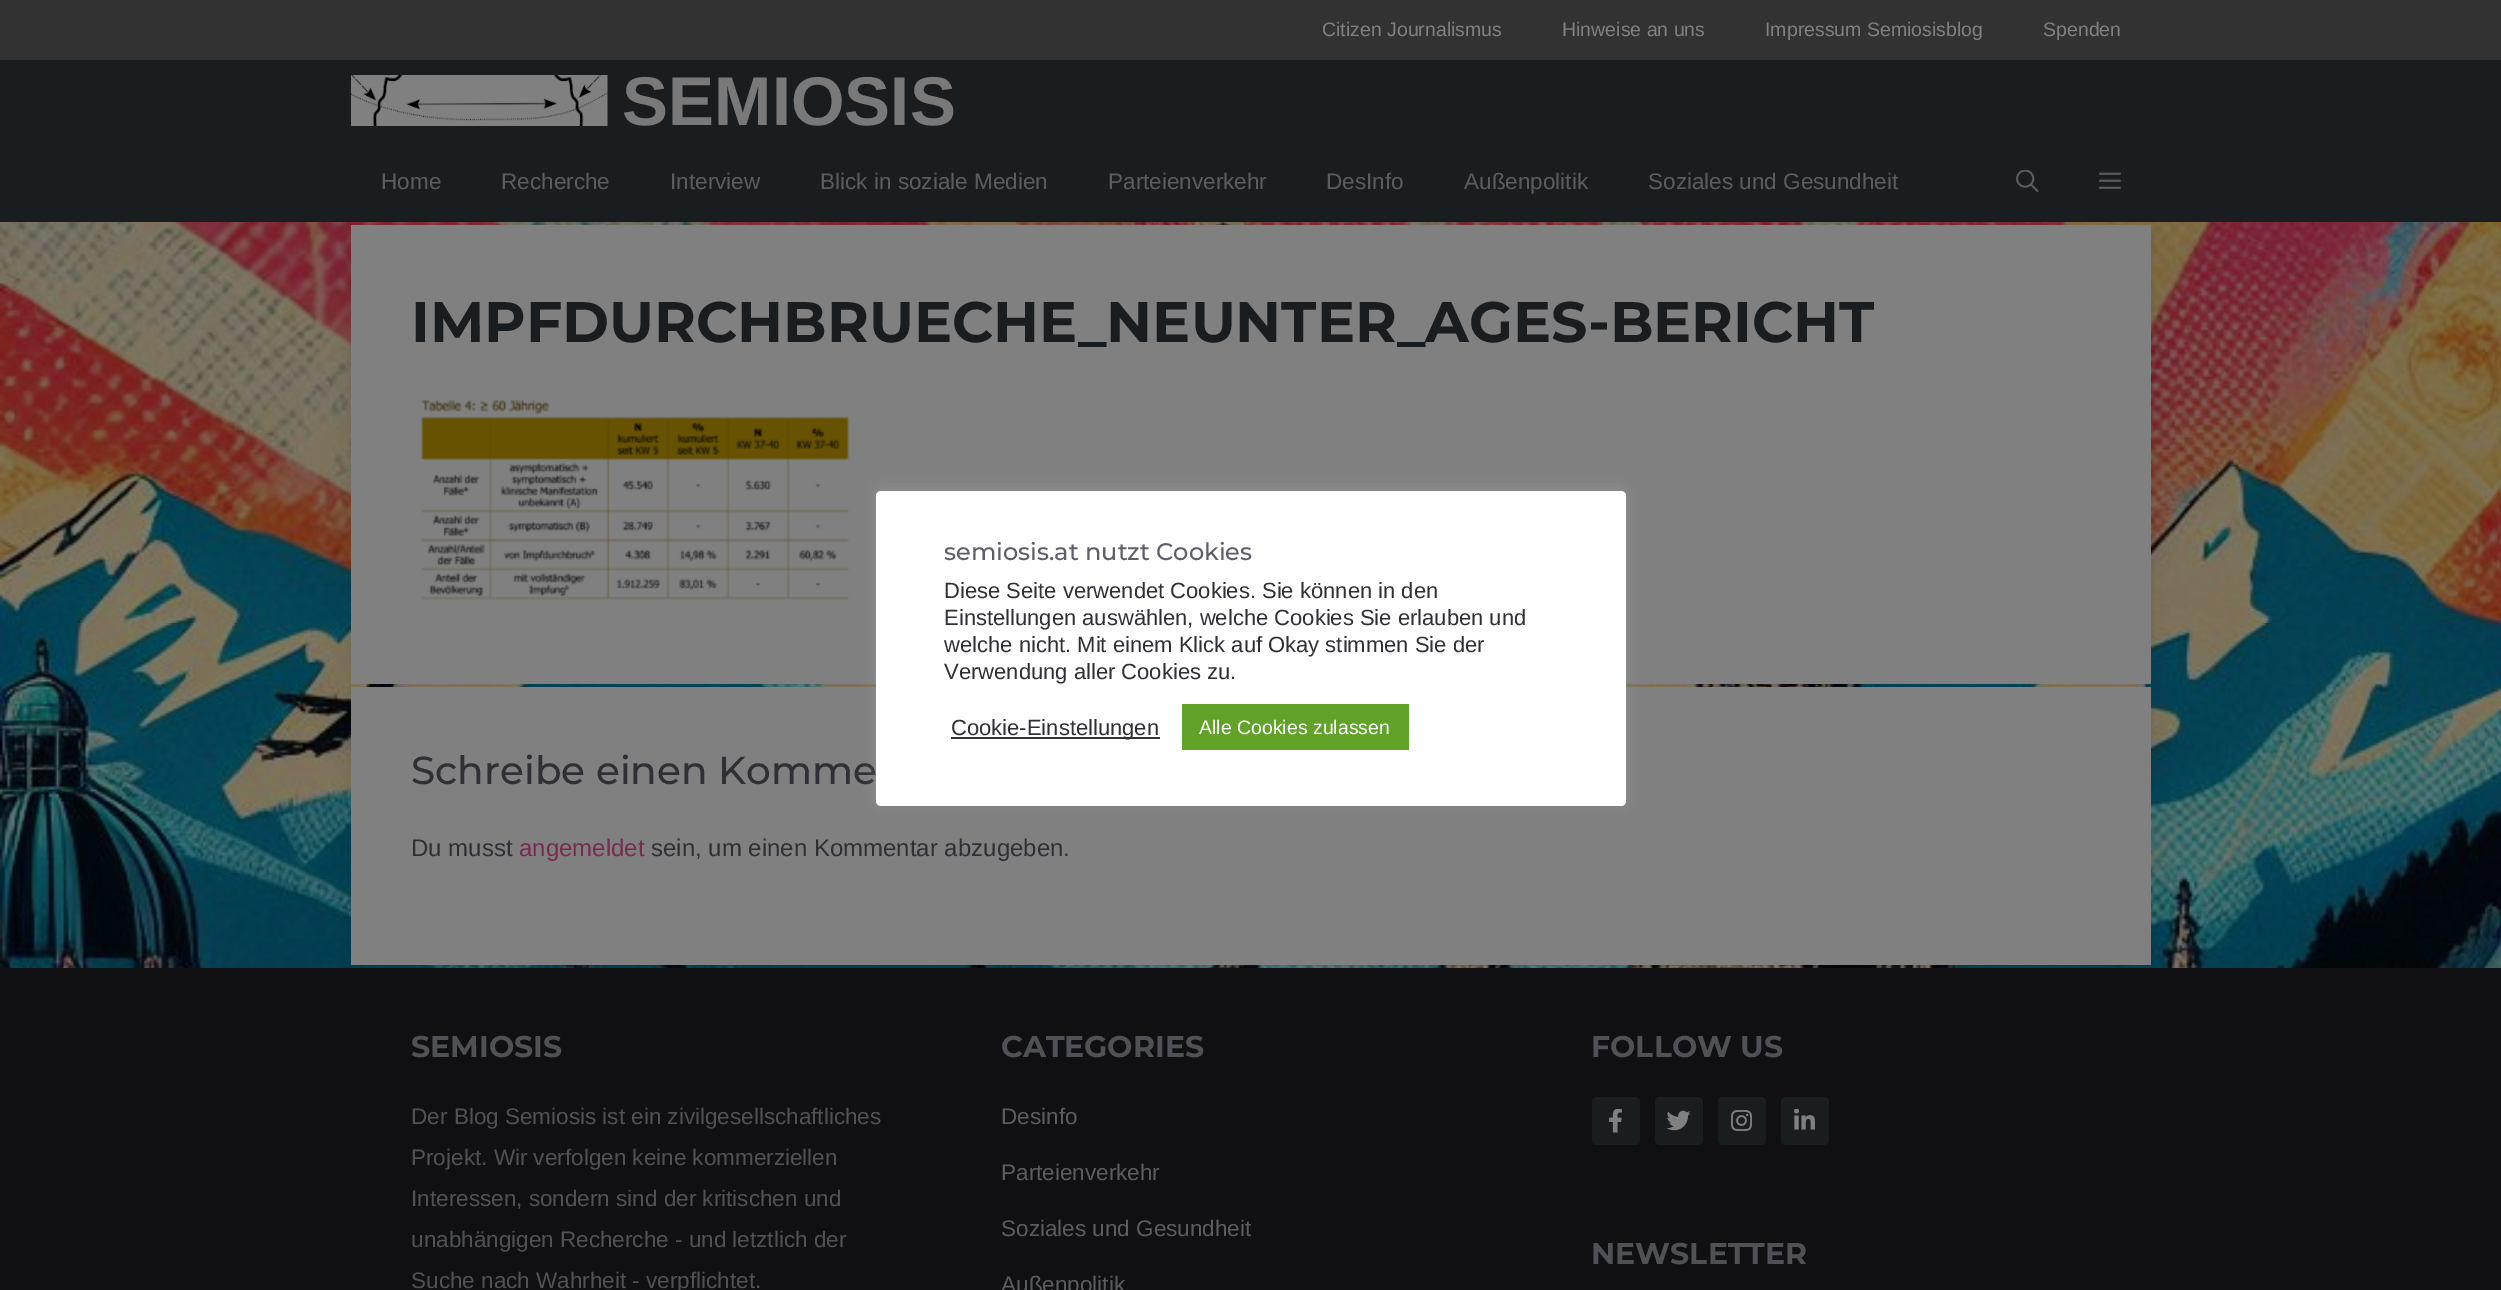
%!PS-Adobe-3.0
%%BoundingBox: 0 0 2501 1290
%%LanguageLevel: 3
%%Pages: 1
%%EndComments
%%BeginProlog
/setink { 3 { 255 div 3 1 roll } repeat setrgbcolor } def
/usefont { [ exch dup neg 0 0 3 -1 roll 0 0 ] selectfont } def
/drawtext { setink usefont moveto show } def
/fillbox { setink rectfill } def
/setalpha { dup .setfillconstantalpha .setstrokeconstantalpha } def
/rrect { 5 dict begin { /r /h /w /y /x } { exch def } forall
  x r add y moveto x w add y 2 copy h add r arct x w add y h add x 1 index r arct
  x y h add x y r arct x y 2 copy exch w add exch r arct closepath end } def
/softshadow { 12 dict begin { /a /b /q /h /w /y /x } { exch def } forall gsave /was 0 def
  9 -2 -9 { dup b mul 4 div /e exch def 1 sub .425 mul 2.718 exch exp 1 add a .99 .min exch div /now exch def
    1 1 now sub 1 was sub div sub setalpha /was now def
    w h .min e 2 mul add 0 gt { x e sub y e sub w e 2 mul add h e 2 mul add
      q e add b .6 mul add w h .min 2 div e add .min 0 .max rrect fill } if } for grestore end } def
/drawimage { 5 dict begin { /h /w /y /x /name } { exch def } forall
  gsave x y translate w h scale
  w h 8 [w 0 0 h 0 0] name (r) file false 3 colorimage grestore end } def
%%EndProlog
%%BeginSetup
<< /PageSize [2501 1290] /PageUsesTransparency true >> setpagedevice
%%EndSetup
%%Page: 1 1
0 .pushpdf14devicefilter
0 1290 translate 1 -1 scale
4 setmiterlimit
0 0 2501 1290 255 255 255 fillbox
(assets/img1.rgb) 0 222 2501 746 drawimage
0 0 2501 60 50 50 50 fillbox
(Citizen Journalismus) 1322 36 /LiberationSans-Regular 19.5 128 128 128 drawtext
(Hinweise an uns) 1562 36 /LiberationSans-Regular 19.5 128 128 128 drawtext
(Impressum Semiosisblog) 1765 36 /LiberationSans-Regular 19.5 128 128 128 drawtext
(Spenden) 2043 36 /LiberationSans-Regular 19.5 128 128 128 drawtext
0 60 2501 162 26 29 32 fillbox
(assets/img2.rgb) 351 75 257 51 drawimage
(SEMIOSIS) 622 125 /LiberationSans-Bold 69 121 121 121 drawtext
(Home) 381 189 /LiberationSans-Regular 22.5 91 92 96 drawtext
(Recherche) 501 189 /LiberationSans-Regular 22.5 91 92 96 drawtext
(Interview) 670 189 /LiberationSans-Regular 22.5 91 92 96 drawtext
(Blick in soziale Medien) 820 189 /LiberationSans-Regular 22.5 91 92 96 drawtext
(Parteienverkehr) 1108 189 /LiberationSans-Regular 22.5 91 92 96 drawtext
(DesInfo) 1326 189 /LiberationSans-Regular 22.5 91 92 96 drawtext
gsave
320 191 moveto 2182 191 lineto 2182 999 lineto 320 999 lineto closepath 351 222 moveto 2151 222 lineto 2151 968 lineto 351 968 lineto closepath eoclip newpath
0 0 0 setink
366 237 1770 716 0 15 0.3 softshadow
grestore
(Außenpolitik) 1464 189 /LiberationSans-Regular 22.5 91 92 96 drawtext
(Soziales und Gesundheit) 1648 189 /LiberationSans-Regular 22.5 91 92 96 drawtext
(assets/img3.rgb) 2016 170 23 22 drawimage
(assets/img4.rgb) 2099 172 22 17 drawimage
351 225 1800 459 128 128 128 fillbox
(IMPFDURCHBRUECHE_NEUNTER_AGES-BERICHT) 411 342 /Montserrat-Bold 57 26 29 32 drawtext
(assets/img5.rgb) 421 400 429 200 drawimage
351 687 1800 278 128 128 128 fillbox
(Schreibe einen Komme) 411 784 /Montserrat-Medium 39 47 47 53 drawtext
(Du musst) 411 856 /LiberationSans-Regular 24 47 47 53 drawtext
(angemeldet) 519 856 /LiberationSans-Regular 24 119 43 81 drawtext
(sein, um einen Kommentar abzugeben.) 651 856 /LiberationSans-Regular 24 47 47 53 drawtext
172 171 171 setink
876 489 750 315 5 7.5 0.3 softshadow
255 255 255 setink
876 491 750 315 5 rrect fill
(semiosis.at nutzt Cookies) 944 560 /Montserrat-Medium 24 94 94 105 drawtext
(Diese Seite verwendet Cookies. Sie können in den) 944 598 /LiberationSans-Regular 22 47 47 53 drawtext
(Einstellungen auswählen, welche Cookies Sie erlauben und) 944 625 /LiberationSans-Regular 22 47 47 53 drawtext
(welche nicht. Mit einem Klick auf Okay stimmen Sie der) 944 652 /LiberationSans-Regular 22 47 47 53 drawtext
(Verwendung aller Cookies zu.) 944 679 /LiberationSans-Regular 22 47 47 53 drawtext
951 737 209 2 51 51 51 fillbox
(Cookie-Einstellungen) 951 735 /LiberationSans-Regular 22 47 47 53 drawtext
1182 704 227 46 97 162 41 fillbox
(Alle Cookies zulassen) 1199 734 /LiberationSans-Regular 19.5 255 255 255 drawtext
0 968 2501 322 16 16 18 fillbox
(SEMIOSIS) 411 1057 /Montserrat-Bold 30 80 81 87 drawtext
(Der Blog Semiosis ist ein zivilgesellschaftliches) 411 1124 /LiberationSans-Regular 22.5 80 81 87 drawtext
(Projekt. Wir verfolgen keine kommerziellen) 411 1165 /LiberationSans-Regular 22.5 80 81 87 drawtext
(Interessen, sondern sind der kritischen und) 411 1206 /LiberationSans-Regular 22.5 80 81 87 drawtext
(unabhängigen Recherche - und letztlich der) 411 1247 /LiberationSans-Regular 22.5 80 81 87 drawtext
(Suche nach Wahrheit - verpflichtet.) 411 1288 /LiberationSans-Regular 22.5 80 81 87 drawtext
(CATEGORIES) 1001 1057 /Montserrat-Bold 30 80 81 87 drawtext
(Desinfo) 1001 1124 /LiberationSans-Regular 22.5 91 92 96 drawtext
(Parteienverkehr) 1001 1180 /LiberationSans-Regular 22.5 91 92 96 drawtext
(Soziales und Gesundheit) 1001 1236 /LiberationSans-Regular 22.5 91 92 96 drawtext
(Außenpolitik) 1001 1292 /LiberationSans-Regular 22.5 91 92 96 drawtext
(FOLLOW US) 1591 1057 /Montserrat-Bold 30 80 81 87 drawtext
26 29 32 setink
1592 1097 48 48 5 rrect fill
(assets/img6.rgb) 1609 1109 13 24 drawimage
1655 1097 48 48 5 rrect fill
(assets/img7.rgb) 1667 1110 24 21 drawimage
1718 1097 48 48 5 rrect fill
(assets/img8.rgb) 1731 1110 21 21 drawimage
1781 1097 48 48 5 rrect fill
(assets/img9.rgb) 1794 1109 21 21 drawimage
(NEWSLETTER) 1591 1264 /Montserrat-Bold 30 80 81 87 drawtext
.poppdf14devicefilter showpage
%%EOF
